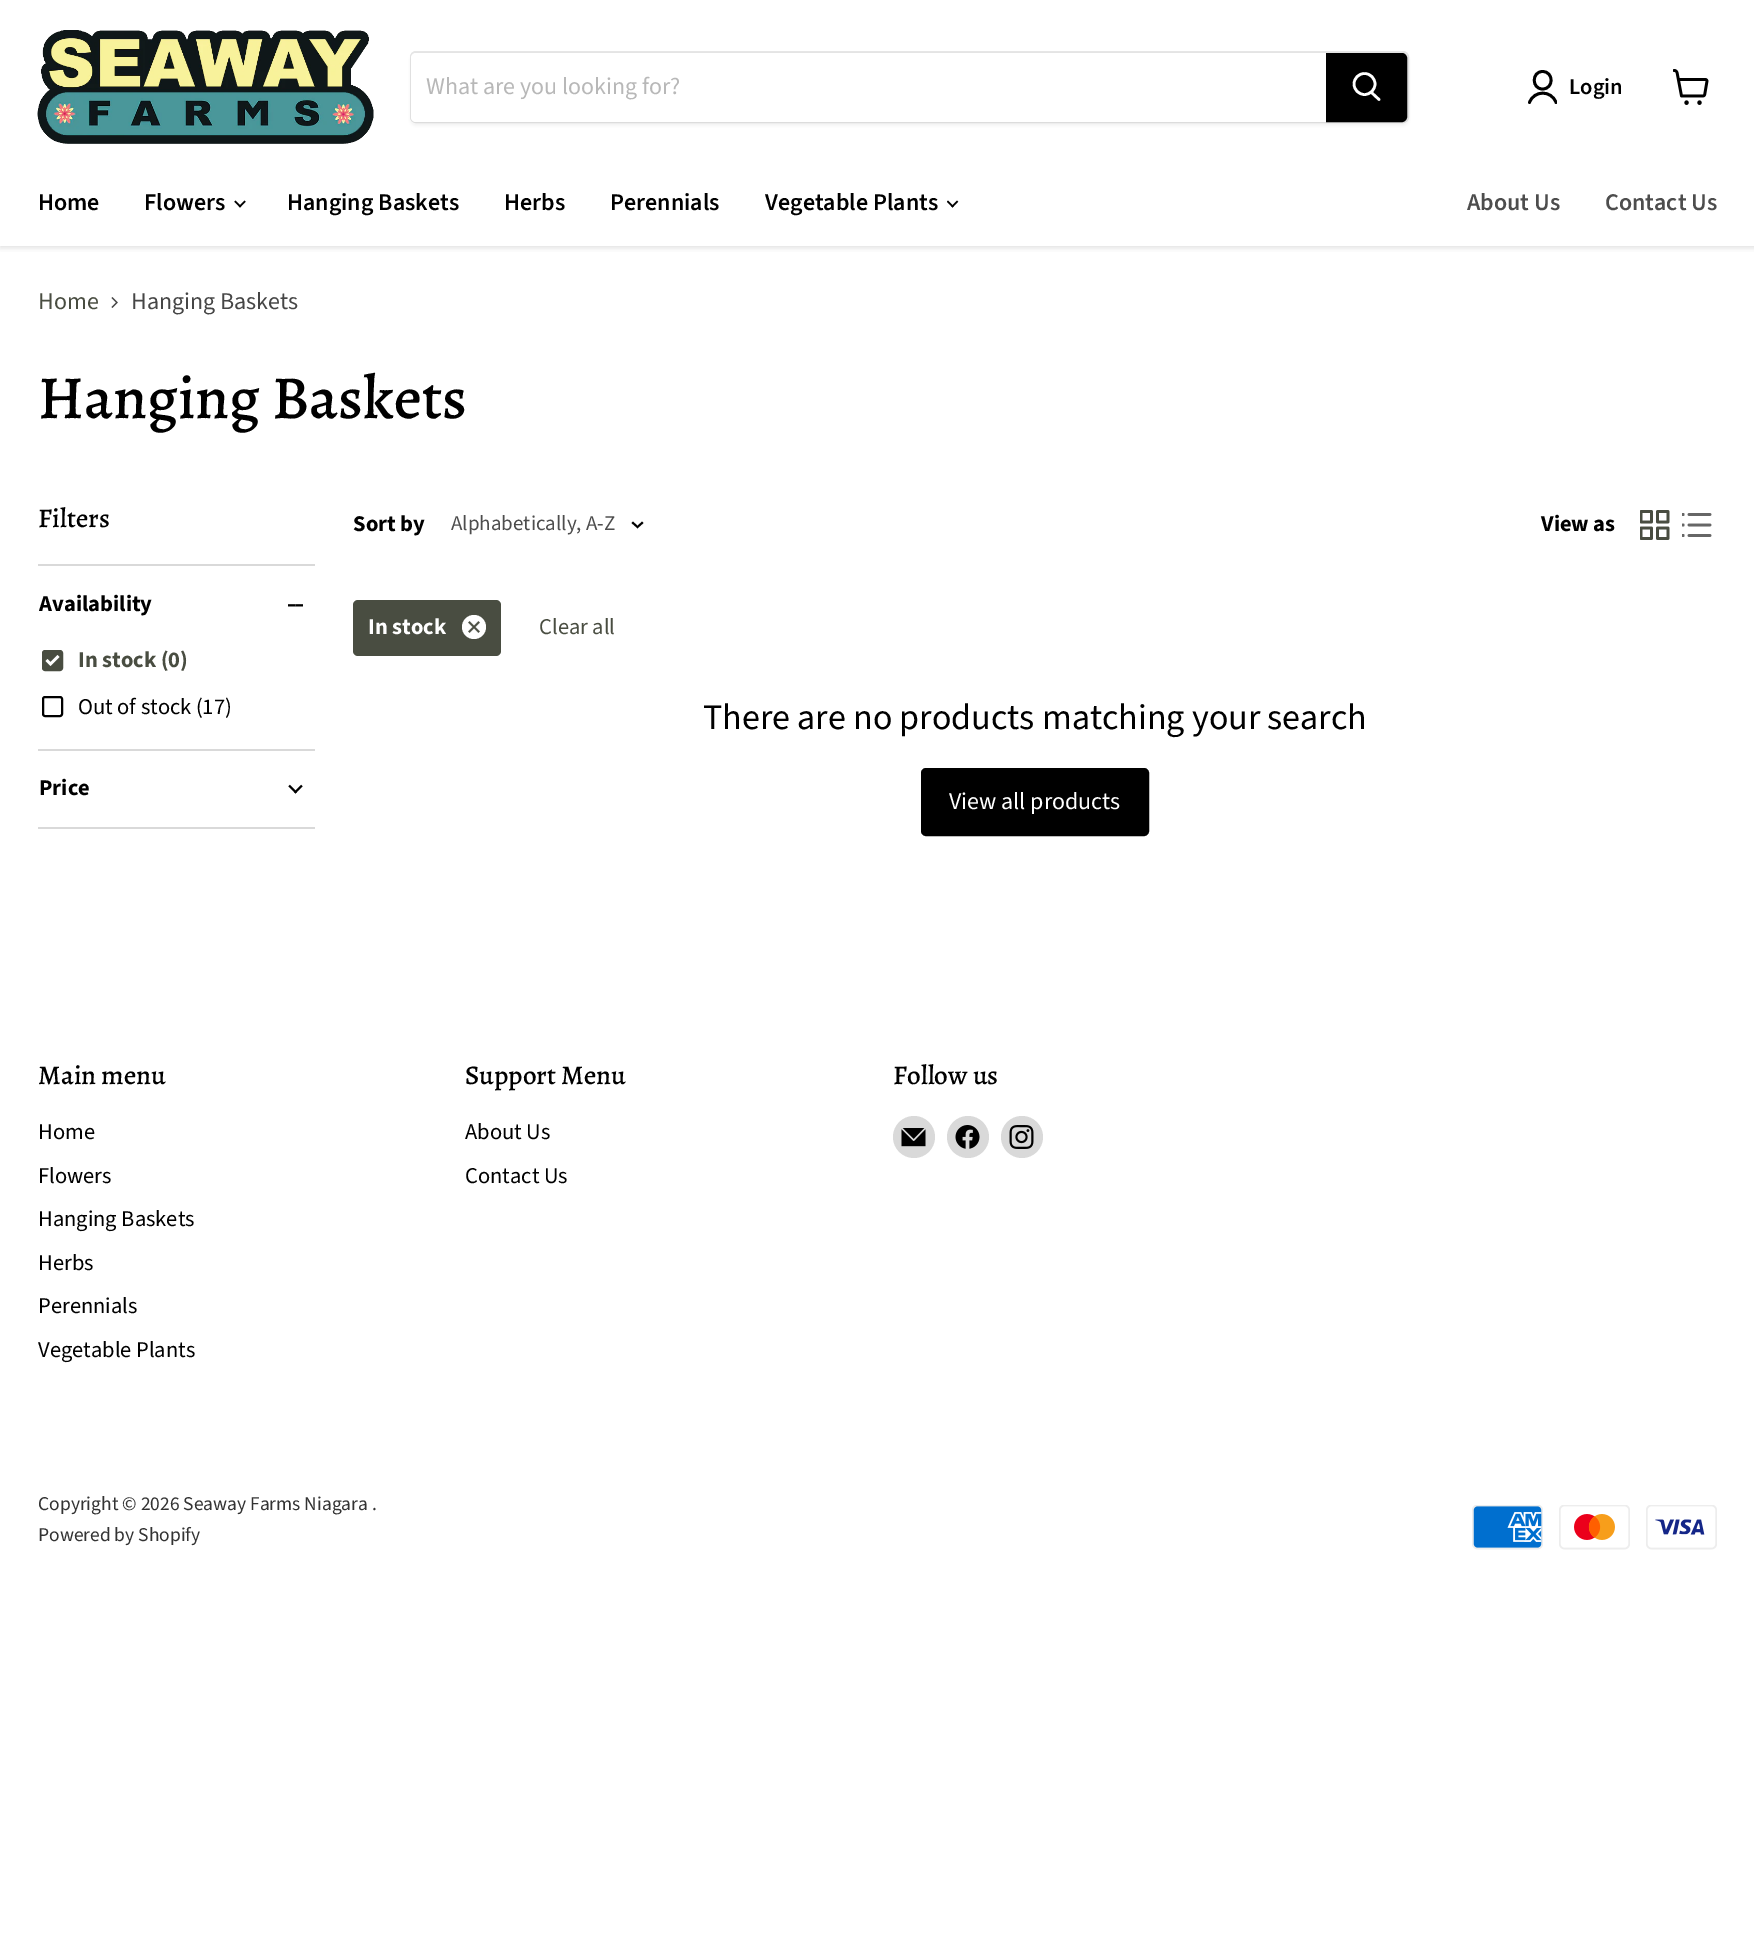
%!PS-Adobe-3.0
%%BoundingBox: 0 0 1754 1937
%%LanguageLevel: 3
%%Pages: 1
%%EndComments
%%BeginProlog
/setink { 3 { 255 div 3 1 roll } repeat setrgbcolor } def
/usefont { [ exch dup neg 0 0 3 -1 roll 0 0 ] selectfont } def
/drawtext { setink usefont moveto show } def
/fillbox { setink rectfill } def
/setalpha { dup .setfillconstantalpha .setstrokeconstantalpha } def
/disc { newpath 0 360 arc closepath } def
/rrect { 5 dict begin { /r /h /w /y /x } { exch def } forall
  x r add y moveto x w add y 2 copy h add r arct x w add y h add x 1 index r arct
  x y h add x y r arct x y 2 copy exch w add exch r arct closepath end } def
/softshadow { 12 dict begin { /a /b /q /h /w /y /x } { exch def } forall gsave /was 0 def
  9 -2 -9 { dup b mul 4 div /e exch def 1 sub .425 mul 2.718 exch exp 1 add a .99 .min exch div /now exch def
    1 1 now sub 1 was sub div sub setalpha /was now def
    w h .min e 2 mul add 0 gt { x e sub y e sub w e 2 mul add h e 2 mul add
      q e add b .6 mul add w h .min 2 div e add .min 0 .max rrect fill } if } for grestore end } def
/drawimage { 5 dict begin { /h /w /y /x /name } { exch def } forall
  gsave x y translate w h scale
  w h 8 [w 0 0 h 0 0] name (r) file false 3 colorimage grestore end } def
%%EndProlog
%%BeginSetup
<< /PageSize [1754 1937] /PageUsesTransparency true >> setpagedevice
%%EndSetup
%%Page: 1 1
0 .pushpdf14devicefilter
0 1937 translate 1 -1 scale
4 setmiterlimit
0 0 1754 1937 255 255 255 fillbox
gsave
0 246 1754 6 rectclip
128 128 128 setink
0 2 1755 246 0 3 0.25 softshadow
grestore
(assets/img1.rgb) 37 30 337 114 drawimage
128 128 128 setink
410 54 999 72 6 2 0.11 softshadow
0.2 setalpha
2 setlinewidth
411 52 997 70 5 rrect stroke
1 setalpha
255 255 255 setink
416 53 moveto 1326 53 lineto 1326 122 lineto 416 122 lineto 413 122 411 120 411 117 curveto 411 58 lineto 411 55 413 53 416 53 curveto closepath fill
(What are you looking for?) 426 94 /SourceSansPro-Regular 24 184 184 184 drawtext
0 0 0 setink
1327 54 moveto 1402 54 lineto 1404 54 1406 56 1406 58 curveto 1406 117 lineto 1406 119 1404 121 1402 121 curveto 1327 121 lineto closepath gsave fill grestore
stroke
255 255 255 setink
2.6 setlinewidth
1 setlinecap
1379 99.5 moveto 1371.5 92.5 lineto stroke
0 setlinecap
1364.5 84 10.5 disc stroke
0 0 0 setink
2.8 setlinewidth
1 setlinecap
1 setlinejoin
1542.5 89 moveto 1554 89 1554 71.5 1542.5 71.5 curveto 1531.5 71.5 1531.5 89 1542.5 89 curveto closepath stroke
gsave
1527 69 30 36 rectclip
1556 102.5 moveto 1551.5 90 1534 90 1529.5 102.5 curveto stroke
grestore
(Login) 1569 94 /SourceSansPro-SemiBold 22.5 0 0 0 drawtext
(assets/img2.rgb) 1673 69 36 36 drawimage
(Home) 38 210 /SourceSansPro-SemiBold 24 0 0 0 drawtext
(Flowers) 144 210 /SourceSansPro-SemiBold 24 0 0 0 drawtext
(assets/img3.rgb) 234 200 12 8 drawimage
(Hanging Baskets) 287 210 /SourceSansPro-SemiBold 24 0 0 0 drawtext
(Herbs) 504 210 /SourceSansPro-SemiBold 24 0 0 0 drawtext
(Perennials) 610 210 /SourceSansPro-SemiBold 24 0 0 0 drawtext
(Vegetable Plants) 765 210 /SourceSansPro-SemiBold 24 0 0 0 drawtext
(assets/img4.rgb) 947 200 12 8 drawimage
(About Us) 1467 210 /SourceSansPro-SemiBold 24 77 77 77 drawtext
(Contact Us) 1605 210 /SourceSansPro-SemiBold 24 77 77 77 drawtext
(Home) 38 309 /SourceSansPro-Regular 24 73 77 65 drawtext
(assets/img5.rgb) 111 297 7 11 drawimage
(Hanging Baskets) 131 309 /SourceSansPro-Regular 24 70 70 70 drawtext
(Hanging Baskets) 38 418 /Alegreya-Medium 61.25 0 0 0 drawtext
(Filters) 38 527 /Alegreya-Medium 27 0 0 0 drawtext
38 564 277 2 217 217 217 fillbox
(Availability) 39 611 /SourceSansPro-Bold 22.5 0 0 0 drawtext
(assets/img6.rgb) 288 604 15 3 drawimage
73 77 65 setink
43 651 19 19 2 rrect gsave fill grestore
2 setlinewidth
0 setlinecap
0 setlinejoin
stroke
255 255 255 setink
2.6 setlinewidth
46.5 660 moveto 50.5 664 lineto 58.5 656 lineto stroke
(In stock \(0\)) 78 667 /SourceSansPro-Bold 22.5 73 77 65 drawtext
0 0 0 setink
2 setlinewidth
43 697 19 19 2 rrect stroke
(Out of stock \(17\)) 78 714 /SourceSansPro-Regular 22.5 0 0 0 drawtext
38 749 277 2 217 217 217 fillbox
38 827 277 2 217 217 217 fillbox
(Price) 39 795 /SourceSansPro-Bold 22.5 0 0 0 drawtext
(assets/img7.rgb) 288 784 15 10 drawimage
(Sort by) 353 531 /SourceSansPro-Bold 22.5 0 0 0 drawtext
(Alphabetically, A-Z) 451 530 /SourceSansPro-Regular 21 77 77 77 drawtext
0 0 0 setink
1.9 setlinewidth
2 setlinecap
637.5 527 moveto 642 523 lineto 637.5 527 moveto 633 523 lineto stroke
(View as) 1541 531 /SourceSansPro-Bold 22.5 0 0 0 drawtext
(assets/img8.rgb) 1640 510 30 30 drawimage
(assets/img9.rgb) 1682 513 30 24 drawimage
73 77 65 setink
353 600 148 56 5 rrect fill
(In stock) 368 634 /SourceSansPro-Bold 22.5 255 255 255 drawtext
474 627 12 disc fill
(assets/img10.rgb) 468 621 12 12 drawimage
(Clear all) 539 634 /SourceSansPro-Regular 22.5 73 77 65 drawtext
(There are no products matching your search) 703 729 /SourceSansPro-Regular 36 0 0 0 drawtext
922 769 226 66 4 rrect gsave fill grestore
2 setlinewidth
0 setlinecap
stroke
(View all products) 949 809 /SourceSansPro-Regular 24 255 255 255 drawtext
(Main menu) 38 1084 /Alegreya-Medium 27 0 0 0 drawtext
(Home) 38 1139 /SourceSansPro-Regular 22.5 0 0 0 drawtext
(Flowers) 38 1183 /SourceSansPro-Regular 22.5 0 0 0 drawtext
(Hanging Baskets) 38 1226 /SourceSansPro-Regular 22.5 0 0 0 drawtext
(Herbs) 38 1270 /SourceSansPro-Regular 22.5 0 0 0 drawtext
(Perennials) 38 1313 /SourceSansPro-Regular 22.5 0 0 0 drawtext
(Vegetable Plants) 38 1357 /SourceSansPro-Regular 22.5 0 0 0 drawtext
(Support Menu) 465 1084 /Alegreya-Medium 27 0 0 0 drawtext
(About Us) 465 1139 /SourceSansPro-Regular 22.5 0 0 0 drawtext
(Contact Us) 465 1183 /SourceSansPro-Regular 22.5 0 0 0 drawtext
(Follow us) 893 1084 /Alegreya-Medium 27 0 0 0 drawtext
217 217 217 setink
914 1137 21 disc fill
(assets/img11.rgb) 901 1128 25 19 drawimage
968 1137 21 disc fill
(assets/img12.rgb) 955 1125 25 24 drawimage
1022 1137 21 disc fill
(assets/img13.rgb) 1009 1125 25 24 drawimage
(Copyright © 2026 Seaway Farms Niagara .) 38 1510 /SourceSansPro-Regular 19.5 51 51 51 drawtext
(Powered by Shopify) 38 1541 /SourceSansPro-Regular 19.5 51 51 51 drawtext
(assets/img14.rgb) 1472 1505 71 45 drawimage
(assets/img15.rgb) 1559 1505 71 45 drawimage
(assets/img16.rgb) 1646 1505 71 45 drawimage
.poppdf14devicefilter showpage
%%EOF
